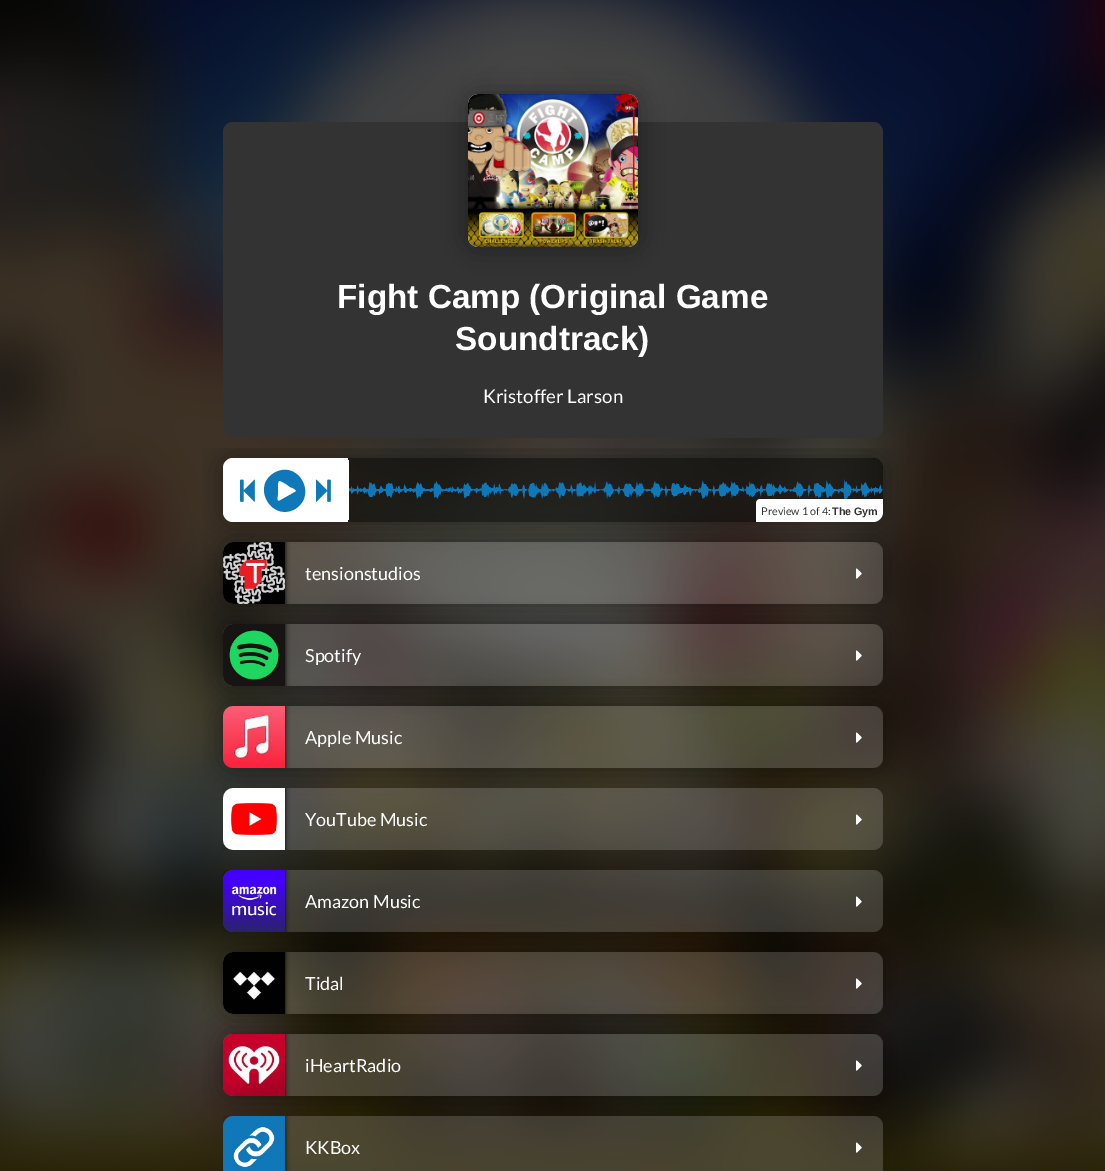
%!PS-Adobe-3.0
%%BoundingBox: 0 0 1105 1171
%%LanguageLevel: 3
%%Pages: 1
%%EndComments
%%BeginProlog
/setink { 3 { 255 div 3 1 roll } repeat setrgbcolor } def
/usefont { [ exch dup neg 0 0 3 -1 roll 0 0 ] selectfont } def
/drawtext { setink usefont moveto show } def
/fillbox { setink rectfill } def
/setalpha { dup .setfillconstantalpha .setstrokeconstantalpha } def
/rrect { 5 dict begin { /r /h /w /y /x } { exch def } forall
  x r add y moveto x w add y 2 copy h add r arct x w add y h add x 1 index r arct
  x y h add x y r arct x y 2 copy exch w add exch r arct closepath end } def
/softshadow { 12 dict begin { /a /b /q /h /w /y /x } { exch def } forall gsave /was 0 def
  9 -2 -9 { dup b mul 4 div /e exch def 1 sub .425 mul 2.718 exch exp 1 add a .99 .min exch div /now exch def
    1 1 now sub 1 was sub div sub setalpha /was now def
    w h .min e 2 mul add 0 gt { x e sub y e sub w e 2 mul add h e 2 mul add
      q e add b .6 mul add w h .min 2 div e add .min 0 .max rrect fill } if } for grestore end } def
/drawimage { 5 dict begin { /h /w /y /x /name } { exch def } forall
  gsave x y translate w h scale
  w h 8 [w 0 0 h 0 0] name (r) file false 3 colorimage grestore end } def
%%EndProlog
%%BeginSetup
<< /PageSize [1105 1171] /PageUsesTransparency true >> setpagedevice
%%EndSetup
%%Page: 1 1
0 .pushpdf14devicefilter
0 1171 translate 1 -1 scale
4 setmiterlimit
0 0 1105 1171 0 0 0 fillbox
(assets/img1.rgb) 0 0 1105 1171 drawimage
51 51 51 setink
223 122 660 316 10 rrect fill
0 0 0 setink
468 94 170 153 10 12.5 0.35 softshadow
204 204 204 setink
468 94 170 153 10 rrect fill
(assets/img2.rgb) 468 94 170 153 drawimage
(Fight Camp \(Original Game) 337 308 /LiberationSans-Bold 33.3 255 255 255 drawtext
(Soundtrack\)) 455 350 /LiberationSans-Bold 33.3 255 255 255 drawtext
(Kristoffer Larson) 483 403 /Lato-Regular 18.75 255 255 255 drawtext
gsave
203 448 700 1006 rectclip
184 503 moveto 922 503 lineto 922 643 lineto 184 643 lineto closepath 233 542 moveto 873 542 lineto 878.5 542 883 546.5 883 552 curveto 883 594 lineto 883 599.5 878.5 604 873 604 curveto 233 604 lineto 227.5 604 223 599.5 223 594 curveto 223 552 lineto 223 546.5 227.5 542 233 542 curveto closepath eoclip newpath
0 0 0 setink
223 542 660 62 10 12.5 0.35 softshadow
grestore
0.17 setalpha
223 542 660 62 10 rrect fill
gsave
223 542 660 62 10 rrect clip newpath
1 setalpha
0 0 0 setink
223 542 62 62 0 2.5 1 softshadow
grestore
1 setalpha
(assets/img6.rgb) 223 542 62 62 drawimage
gsave
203 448 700 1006 rectclip
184 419 moveto 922 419 lineto 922 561 lineto 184 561 lineto closepath 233 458 moveto 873 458 lineto 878.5 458 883 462.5 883 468 curveto 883 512 lineto 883 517.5 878.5 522 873 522 curveto 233 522 lineto 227.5 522 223 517.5 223 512 curveto 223 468 lineto 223 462.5 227.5 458 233 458 curveto closepath eoclip newpath
0 0 0 setink
223 458 660 64 10 12.5 0.35 softshadow
grestore
233 458 moveto 348 458 lineto 348 522 lineto 233 522 lineto 227.5 522 223 517.5 223 512 curveto 223 468 lineto 223 462.5 227.5 458 233 458 curveto closepath fill
(assets/img3.rgb) 240 479 15 23 drawimage
15 120 184 setink
274 473 moveto 298 459 318 495 295 509 curveto 272 522 251 487 274 473 curveto closepath 295 492 moveto 299 490 290 487 290 487 curveto 288 485 280 480 279 481 curveto 277 482 278 492 278 494 curveto 278 495 276 501 279 501 curveto closepath fill
(assets/img4.rgb) 316 479 15 23 drawimage
0.5 setalpha
0 0 0 setink
348 458 moveto 873 458 lineto 878.5 458 883 462.5 883 468 curveto 883 512 lineto 883 517.5 878.5 522 873 522 curveto 348 522 lineto closepath fill
1 setalpha
348 460 1 60 255 255 255 fillbox
(assets/img5.rgb) 349 479 534 20 drawimage
760 499 moveto 883 499 lineto 883 512 lineto 883 517.5 878.5 522 873 522 curveto 756 522 lineto 756 503 lineto 756 501 758 499 760 499 curveto closepath fill
(Preview 1 of 4:) 761 515 /Lato-Regular 10.75 51 51 51 drawtext
(The Gym) 832 515 /LiberationSans-Bold 10.75 51 51 51 drawtext
(tensionstudios) 305 580 /Lato-Regular 18 255 255 255 drawtext
(assets/img7.rgb) 856 568 6 11 drawimage
gsave
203 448 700 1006 rectclip
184 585 moveto 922 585 lineto 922 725 lineto 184 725 lineto closepath 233 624 moveto 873 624 lineto 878.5 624 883 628.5 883 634 curveto 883 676 lineto 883 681.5 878.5 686 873 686 curveto 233 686 lineto 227.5 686 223 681.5 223 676 curveto 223 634 lineto 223 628.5 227.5 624 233 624 curveto closepath eoclip newpath
0 0 0 setink
223 624 660 62 10 12.5 0.35 softshadow
grestore
0.17 setalpha
223 624 660 62 10 rrect fill
gsave
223 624 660 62 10 rrect clip newpath
1 setalpha
0 0 0 setink
223 624 62 62 0 2.5 1 softshadow
grestore
1 setalpha
(assets/img8.rgb) 223 624 62 62 drawimage
(Spotify) 305 662 /Lato-Regular 18 255 255 255 drawtext
(assets/img9.rgb) 856 650 6 11 drawimage
gsave
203 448 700 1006 rectclip
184 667 moveto 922 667 lineto 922 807 lineto 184 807 lineto closepath 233 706 moveto 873 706 lineto 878.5 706 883 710.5 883 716 curveto 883 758 lineto 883 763.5 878.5 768 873 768 curveto 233 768 lineto 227.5 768 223 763.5 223 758 curveto 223 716 lineto 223 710.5 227.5 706 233 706 curveto closepath eoclip newpath
0 0 0 setink
223 706 660 62 10 12.5 0.35 softshadow
grestore
0.17 setalpha
223 706 660 62 10 rrect fill
gsave
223 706 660 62 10 rrect clip newpath
1 setalpha
0 0 0 setink
223 706 62 62 0 2.5 1 softshadow
grestore
1 setalpha
(assets/img10.rgb) 223 706 62 62 drawimage
(Apple Music) 305 744 /Lato-Regular 18 255 255 255 drawtext
(assets/img11.rgb) 856 732 6 11 drawimage
0.17 setalpha
223 788 660 62 10 rrect fill
gsave
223 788 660 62 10 rrect clip newpath
1 setalpha
0 0 0 setink
223 788 62 62 0 2.5 1 softshadow
grestore
1 setalpha
(assets/img12.rgb) 223 788 62 62 drawimage
(YouTube Music) 305 826 /Lato-Regular 18 255 255 255 drawtext
(assets/img13.rgb) 856 814 6 11 drawimage
0.17 setalpha
223 870 660 62 10 rrect fill
gsave
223 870 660 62 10 rrect clip newpath
1 setalpha
0 0 0 setink
223 870 62 62 0 2.5 1 softshadow
grestore
1 setalpha
(assets/img14.rgb) 223 870 62 62 drawimage
(Amazon Music) 305 908 /Lato-Regular 18 255 255 255 drawtext
(assets/img15.rgb) 856 896 6 11 drawimage
gsave
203 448 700 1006 rectclip
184 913 moveto 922 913 lineto 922 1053 lineto 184 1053 lineto closepath 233 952 moveto 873 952 lineto 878.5 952 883 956.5 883 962 curveto 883 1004 lineto 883 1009.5 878.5 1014 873 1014 curveto 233 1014 lineto 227.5 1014 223 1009.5 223 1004 curveto 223 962 lineto 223 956.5 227.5 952 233 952 curveto closepath eoclip newpath
0 0 0 setink
223 952 660 62 10 12.5 0.35 softshadow
grestore
0.17 setalpha
223 952 660 62 10 rrect fill
gsave
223 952 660 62 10 rrect clip newpath
1 setalpha
0 0 0 setink
223 952 62 62 0 2.5 1 softshadow
grestore
1 setalpha
(assets/img16.rgb) 223 952 62 62 drawimage
(Tidal) 305 990 /Lato-Regular 18 255 255 255 drawtext
(assets/img17.rgb) 856 978 6 11 drawimage
gsave
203 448 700 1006 rectclip
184 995 moveto 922 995 lineto 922 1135 lineto 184 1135 lineto closepath 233 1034 moveto 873 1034 lineto 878.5 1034 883 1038.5 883 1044 curveto 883 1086 lineto 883 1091.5 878.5 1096 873 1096 curveto 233 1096 lineto 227.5 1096 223 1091.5 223 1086 curveto 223 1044 lineto 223 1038.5 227.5 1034 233 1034 curveto closepath eoclip newpath
0 0 0 setink
223 1034 660 62 10 12.5 0.35 softshadow
grestore
0.17 setalpha
223 1034 660 62 10 rrect fill
gsave
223 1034 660 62 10 rrect clip newpath
1 setalpha
0 0 0 setink
223 1034 62 62 0 2.5 1 softshadow
grestore
1 setalpha
(assets/img18.rgb) 223 1034 62 62 drawimage
(iHeartRadio) 305 1072 /Lato-Regular 18 255 255 255 drawtext
(assets/img19.rgb) 856 1060 6 11 drawimage
0.17 setalpha
223 1116 660 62 10 rrect fill
gsave
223 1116 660 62 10 rrect clip newpath
1 setalpha
0 0 0 setink
223 1116 62 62 0 2.5 1 softshadow
grestore
1 setalpha
(assets/img20.rgb) 223 1116 62 55 drawimage
(KKBox) 305 1154 /Lato-Regular 18 255 255 255 drawtext
(assets/img21.rgb) 856 1142 6 11 drawimage
.poppdf14devicefilter showpage
%%EOF
